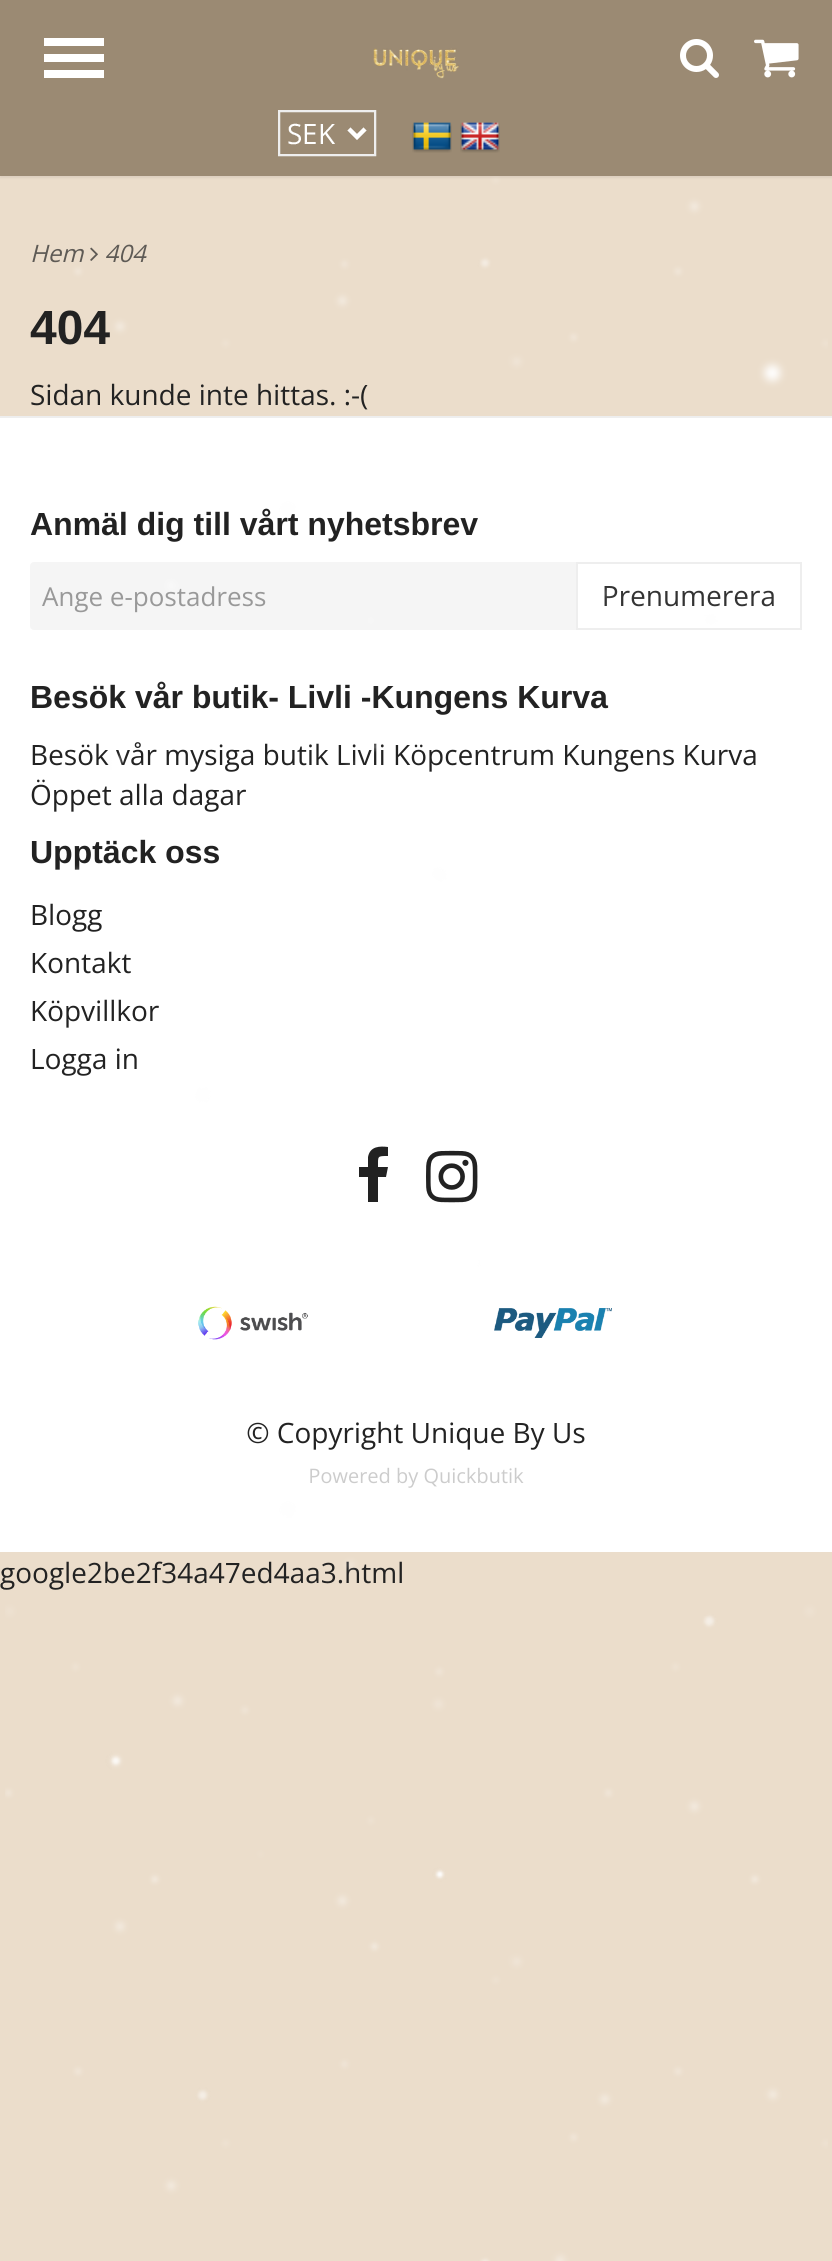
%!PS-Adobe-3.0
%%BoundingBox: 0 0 832 2261
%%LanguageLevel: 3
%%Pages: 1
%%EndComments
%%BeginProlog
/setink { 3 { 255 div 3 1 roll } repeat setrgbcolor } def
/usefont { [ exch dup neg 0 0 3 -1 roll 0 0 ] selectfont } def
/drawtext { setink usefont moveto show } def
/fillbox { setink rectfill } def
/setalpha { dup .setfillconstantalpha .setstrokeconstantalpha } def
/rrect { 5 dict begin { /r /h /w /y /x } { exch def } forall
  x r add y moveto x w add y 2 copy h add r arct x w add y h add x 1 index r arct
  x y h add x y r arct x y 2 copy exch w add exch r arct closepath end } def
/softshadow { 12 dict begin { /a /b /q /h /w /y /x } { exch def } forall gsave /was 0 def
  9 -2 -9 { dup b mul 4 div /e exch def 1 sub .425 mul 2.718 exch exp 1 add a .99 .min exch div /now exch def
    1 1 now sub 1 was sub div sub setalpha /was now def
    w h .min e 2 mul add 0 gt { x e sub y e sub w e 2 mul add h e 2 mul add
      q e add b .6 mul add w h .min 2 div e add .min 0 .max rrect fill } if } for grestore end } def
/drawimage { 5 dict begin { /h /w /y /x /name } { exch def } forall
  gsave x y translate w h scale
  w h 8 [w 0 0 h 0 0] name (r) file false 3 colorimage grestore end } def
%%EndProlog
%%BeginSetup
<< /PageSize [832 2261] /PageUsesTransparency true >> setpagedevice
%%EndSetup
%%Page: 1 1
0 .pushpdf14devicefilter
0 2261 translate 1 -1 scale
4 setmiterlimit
0 0 832 2261 235 221 203 fillbox
(Hem) 30 262 /OpenSans-Italic 24 94 90 85 drawtext
(assets/img7.rgb) 90 247 8 14 drawimage
(404) 104 262 /OpenSans-Italic 24 94 90 85 drawtext
(404) 30 344 /LiberationSans-Bold 48 34 34 34 drawtext
(Sidan kunde inte hittas. :-\() 30 405 /OpenSans-Regular 28 34 34 34 drawtext
0 418 832 1134 255 255 255 fillbox
0 416 832 2 238 238 238 fillbox
(Anmäl dig till vårt nyhetsbrev) 30 535 /LiberationSans-Bold 32 34 34 34 drawtext
245 245 245 setink
34 562 moveto 578 562 lineto 578 630 lineto 34 630 lineto 32 630 30 628 30 626 curveto 30 566 lineto 30 564 32 562 34 562 curveto closepath fill
(Ange e-postadress) 42 606 /OpenSans-Regular 26 153 153 153 drawtext
238 238 238 setink
2 setlinewidth
577 563 224 66 rectstroke
(Prenumerera) 602 606 /OpenSans-Regular 28 51 51 51 drawtext
(Besök vår butik- Livli -Kungens Kurva) 30 708 /LiberationSans-Bold 32 34 34 34 drawtext
(Besök vår mysiga butik Livli Köpcentrum Kungens Kurva) 30 765 /OpenSans-Regular 28 34 34 34 drawtext
(Öppet alla dagar) 30 805 /OpenSans-Regular 28 34 34 34 drawtext
(Upptäck oss) 30 863 /LiberationSans-Bold 32 34 34 34 drawtext
(Blogg) 30 925 /OpenSans-Regular 28 34 34 34 drawtext
(Kontakt) 30 973 /OpenSans-Regular 28 34 34 34 drawtext
(Köpvillkor) 30 1021 /OpenSans-Regular 28 34 34 34 drawtext
(Logga in) 30 1069 /OpenSans-Regular 28 34 34 34 drawtext
388 1147 moveto 388 1156 lineto 377 1156 378 1156 378 1167 curveto 388 1167 lineto 386 1177 lineto 378 1177 lineto 378 1202 lineto 368 1202 lineto 368 1177 lineto 359 1177 lineto 359 1167 lineto 368 1167 lineto 368 1157 lineto 370 1146 380 1146 388 1147 curveto closepath fill
(assets/img8.rgb) 426 1150 52 53 drawimage
(assets/img9.rgb) 198 1306 110 34 drawimage
(assets/img10.rgb) 494 1308 118 30 drawimage
(© Copyright Unique By Us) 246 1443 /OpenSans-Regular 28 34 34 34 drawtext
(Powered by Quickbutik) 308 1483 /OpenSans-Regular 20 204 204 204 drawtext
(google2be2f34a47ed4aa3.html) 0 1583 /OpenSans-Regular 28 34 34 34 drawtext
(assets/img6.rgb) 5 176 823 2085 drawimage
0 0 0 setink
0 2 832 176 0 1 0.05 softshadow
0 0 832 176 155 138 115 fillbox
44 54 60 8 255 255 255 fillbox
44 38 60 8 255 255 255 fillbox
44 70 60 8 255 255 255 fillbox
(assets/img1.rgb) 373 48 86 31 drawimage
(assets/img2.rgb) 680 39 39 39 drawimage
(assets/img3.rgb) 754 39 45 39 drawimage
238 238 238 setink
279 111 96 44 rectstroke
255 255 255 setink
4 setlinewidth
349 129 moveto 357 137 lineto 365 129 lineto stroke
(SEK) 287 144 /OpenSans-Regular 28 255 255 255 drawtext
(assets/img4.rgb) 412 122 40 31 drawimage
(assets/img5.rgb) 460 122 40 31 drawimage
.poppdf14devicefilter showpage
%%EOF
